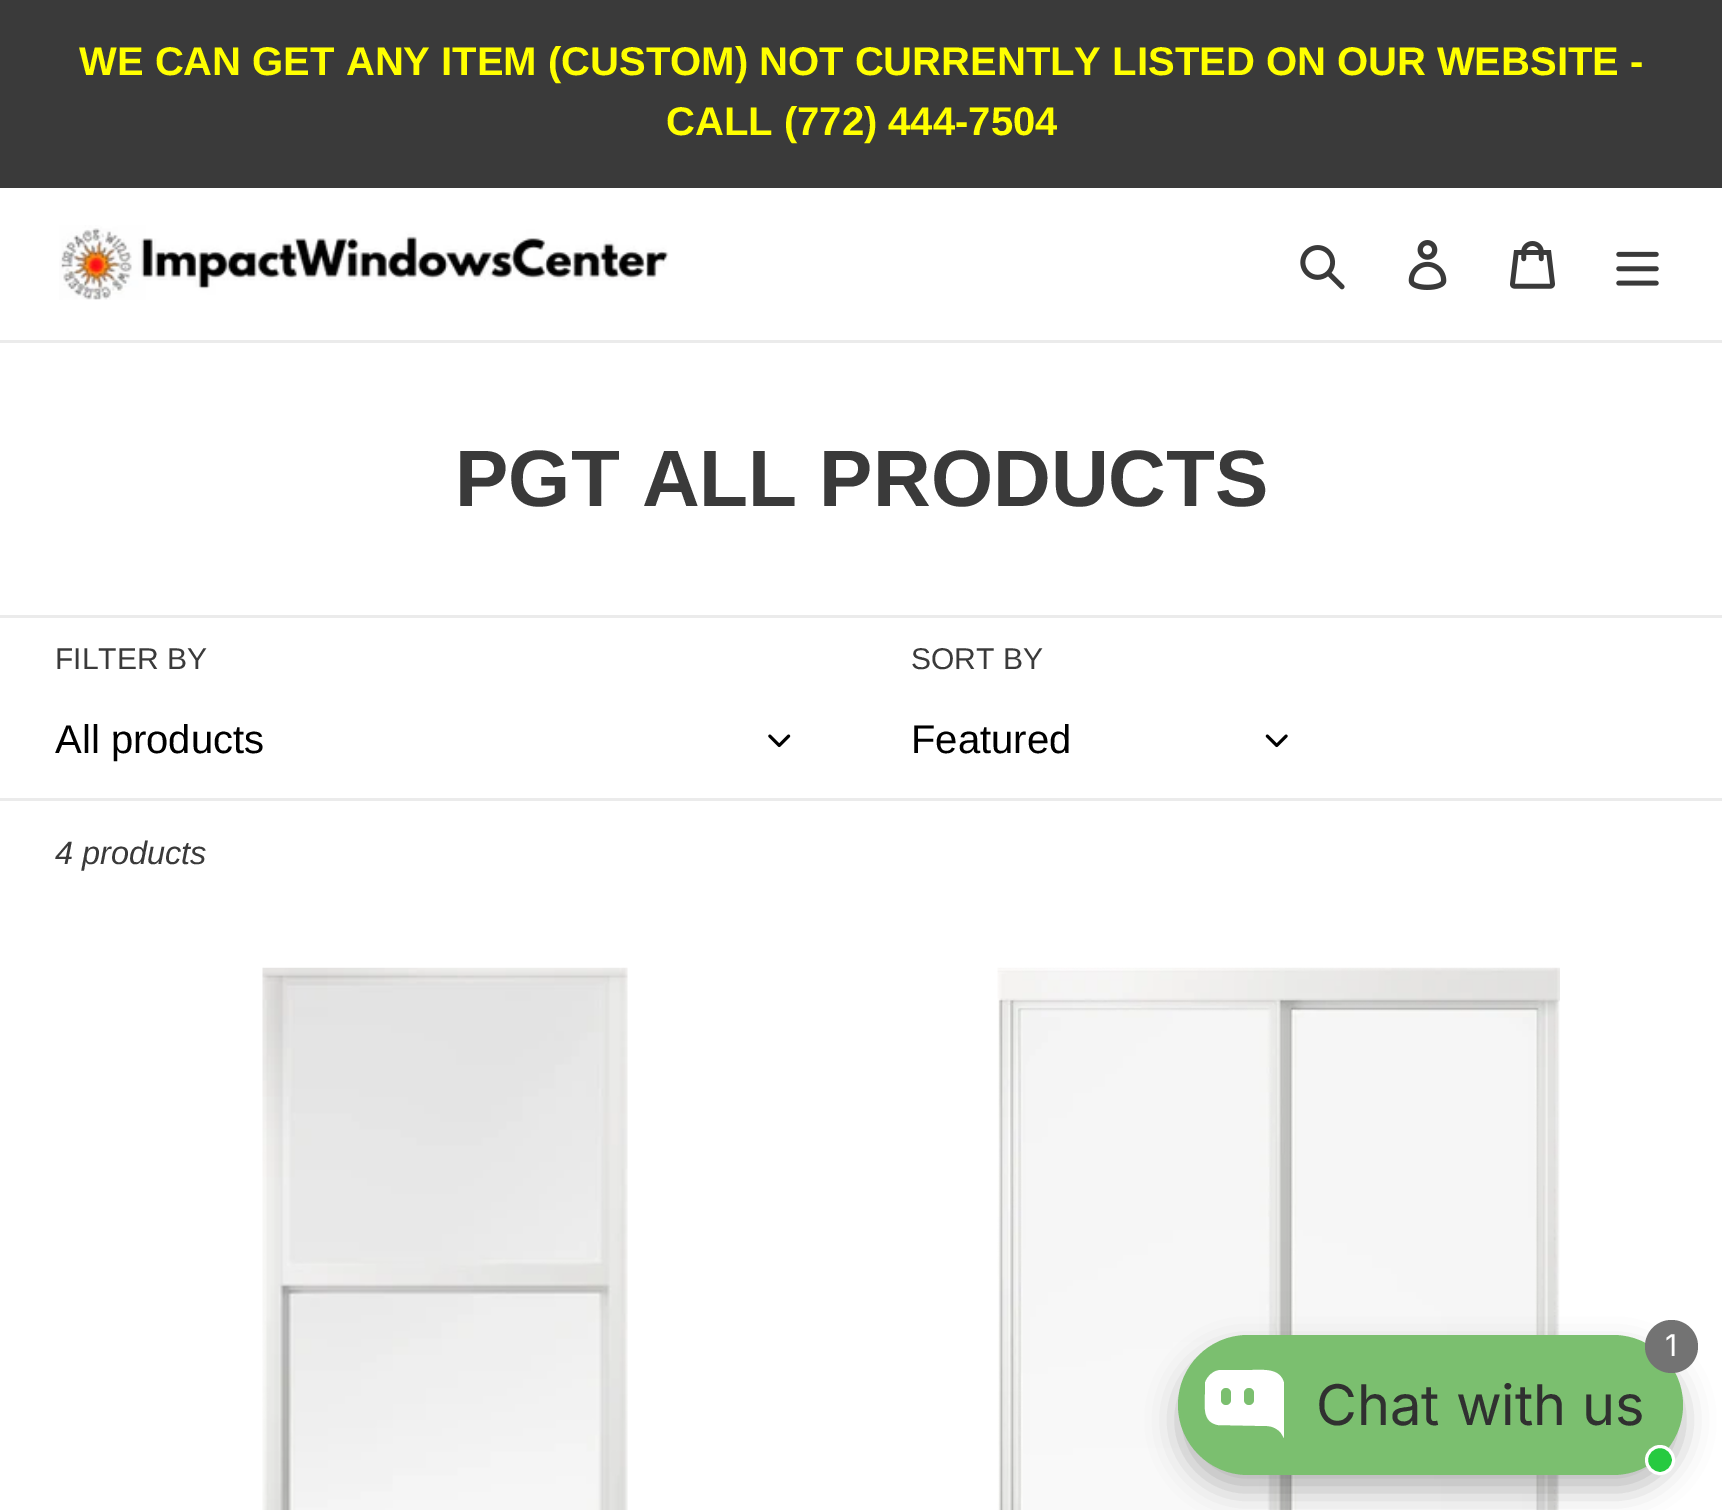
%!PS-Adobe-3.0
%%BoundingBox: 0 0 1722 1510
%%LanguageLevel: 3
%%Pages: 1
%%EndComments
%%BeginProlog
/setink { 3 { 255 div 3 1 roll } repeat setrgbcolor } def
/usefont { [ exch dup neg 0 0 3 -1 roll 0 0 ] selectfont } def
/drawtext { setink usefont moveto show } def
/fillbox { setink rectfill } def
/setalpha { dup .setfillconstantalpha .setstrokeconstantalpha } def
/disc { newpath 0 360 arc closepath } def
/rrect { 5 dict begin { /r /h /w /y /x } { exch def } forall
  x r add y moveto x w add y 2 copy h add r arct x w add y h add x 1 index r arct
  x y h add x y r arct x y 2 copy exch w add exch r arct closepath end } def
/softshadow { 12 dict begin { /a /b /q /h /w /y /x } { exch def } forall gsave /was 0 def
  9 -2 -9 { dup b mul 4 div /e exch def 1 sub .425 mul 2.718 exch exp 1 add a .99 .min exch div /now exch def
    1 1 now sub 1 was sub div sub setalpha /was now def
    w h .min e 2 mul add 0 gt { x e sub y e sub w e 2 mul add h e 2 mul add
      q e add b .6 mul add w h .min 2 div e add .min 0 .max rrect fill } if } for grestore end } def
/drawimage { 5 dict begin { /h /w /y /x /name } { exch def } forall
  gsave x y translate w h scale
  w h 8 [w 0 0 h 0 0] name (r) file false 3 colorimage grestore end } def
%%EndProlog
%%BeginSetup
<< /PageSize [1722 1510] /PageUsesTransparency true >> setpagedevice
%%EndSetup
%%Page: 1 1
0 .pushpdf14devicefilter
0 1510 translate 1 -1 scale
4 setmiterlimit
0 0 1722 1510 255 255 255 fillbox
0 0 1722 188 58 58 58 fillbox
(WE CAN GET ANY ITEM \(CUSTOM\) NOT CURRENTLY LISTED ON OUR WEBSITE -) 79 75 /LiberationSans-Bold 40 255 255 0 drawtext
(CALL \(772\) 444-7504) 666 135 /LiberationSans-Bold 40 255 255 0 drawtext
0 340 1722 3 235 235 235 fillbox
(assets/img1.rgb) 59 225 610 75 drawimage
(assets/img2.rgb) 1300 245 45 45 drawimage
(assets/img3.rgb) 1408 240 39 50 drawimage
(assets/img4.rgb) 1510 241 45 48 drawimage
(assets/img5.rgb) 1616 251 43 35 drawimage
(PGT ALL PRODUCTS) 455 506 /LiberationSans-Bold 80 58 58 58 drawtext
0 615 1722 3 235 235 235 fillbox
(FILTER BY) 55 669 /LiberationSans-Regular 30 58 58 58 drawtext
(All products) 55 753 /LiberationSans-Regular 40 0 0 0 drawtext
(assets/img6.rgb) 768 734 23 14 drawimage
(SORT BY) 911 669 /LiberationSans-Regular 30 58 58 58 drawtext
(Featured) 911 753 /LiberationSans-Regular 40 0 0 0 drawtext
(assets/img7.rgb) 1265 734 23 14 drawimage
0 798 1722 3 235 235 235 fillbox
(4 products) 55 864 /LiberationSans-Italic 32.5 58 58 58 drawtext
(assets/img8.rgb) 262 967 366 543 drawimage
(assets/img9.rgb) 997 967 563 543 drawimage
0 0 0 setink
1178 1350 505 140 70 15 0.25 softshadow
123 191 111 setink
1178 1335 505 140 70 rrect fill
115 115 115 setink
1671.5 1346.5 26.5 disc fill
(1) 1665 1356 /Inter-Regular 30 255 255 255 drawtext
1221 1370 moveto 1214 1370 1207 1376 1205 1383 curveto 1205 1394 lineto 1205 1406 1202 1422 1218 1425 curveto 1267 1426 lineto 1272 1426 1278 1429 1281 1433 curveto 1284 1438 lineto 1284 1383 lineto 1280 1368 1264 1370 1252 1370 curveto closepath eofill
123 191 111 setink
1221 1388 10 17 5 rrect fill
1244 1388 10 17 5 rrect fill
(Chat with us) 1316 1425 /Inter-Regular 56 48 48 48 drawtext
39 202 64 setink
1660 1460 13.5 disc gsave fill grestore
255 255 255 setink
3 setlinewidth
stroke
.poppdf14devicefilter showpage
%%EOF
